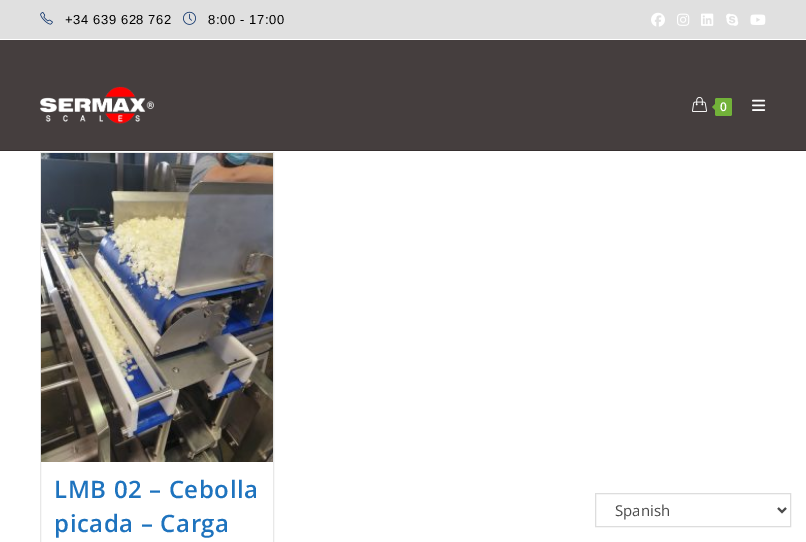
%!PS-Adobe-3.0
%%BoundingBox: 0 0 806 542
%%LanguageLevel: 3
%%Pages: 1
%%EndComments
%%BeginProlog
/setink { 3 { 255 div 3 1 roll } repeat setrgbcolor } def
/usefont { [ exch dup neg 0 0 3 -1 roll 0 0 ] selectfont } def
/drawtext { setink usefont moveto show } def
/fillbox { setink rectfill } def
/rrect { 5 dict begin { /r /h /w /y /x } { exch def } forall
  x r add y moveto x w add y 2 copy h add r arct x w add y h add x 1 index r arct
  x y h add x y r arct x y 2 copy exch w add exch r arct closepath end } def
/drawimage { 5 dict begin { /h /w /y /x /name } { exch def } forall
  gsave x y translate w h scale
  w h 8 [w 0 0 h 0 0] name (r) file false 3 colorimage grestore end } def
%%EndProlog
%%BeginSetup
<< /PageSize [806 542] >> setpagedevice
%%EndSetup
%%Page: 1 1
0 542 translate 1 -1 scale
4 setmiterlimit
0 0 806 542 255 255 255 fillbox
0 0 806 39 224 224 224 fillbox
(assets/img1.rgb) 40 12 13 13 drawimage
/LiberationSans-Regular 13 usefont
0 0 0 setink
65 24 moveto 0.6 0 (+34 639 628 762) ashow
(assets/img2.rgb) 183 11 13 14 drawimage
208 24 moveto 0.6 0 (8:00 - 17:00) ashow
(assets/img3.rgb) 651 12 14 15 drawimage
(assets/img4.rgb) 677 13 13 13 drawimage
(assets/img5.rgb) 701 13 13 13 drawimage
(assets/img6.rgb) 726 13 13 13 drawimage
(assets/img7.rgb) 750 14 16 11 drawimage
0 40 806 110 69 62 62 fillbox
0 150 806 1 54 47 47 fillbox
(assets/img8.rgb) 40 86 114 38 drawimage
(assets/img9.rgb) 692 96 15 16 drawimage
114 178 57 setink
715 98 17 18 2 rrect fill
717 102 moveto 717 112 lineto 712 107 lineto closepath fill
/OpenSans-SemiBold 12 usefont
255 255 255 setink
720 111 moveto 0.6 0 (0) ashow
(assets/img10.rgb) 752 99 14 12 drawimage
232 232 232 setink
40.5 152.5 233 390 rectstroke
(assets/img11.rgb) 41 153 232 309 drawimage
/OpenSans-SemiBold 24 usefont
30 115 190 setink
54 498 moveto 0.6 0 (LMB 02 – Cebolla) ashow
54 532 moveto 0.6 0 (picada – Carga) ashow
221 221 221 setink
595.5 493.5 195 33 rectstroke
74 74 74 setink
2 setlinewidth
778 508 moveto 782 512 lineto 786 508 lineto stroke
(Spanish) 615 516 /OpenSans-Regular 15 74 74 74 drawtext
showpage
%%EOF
